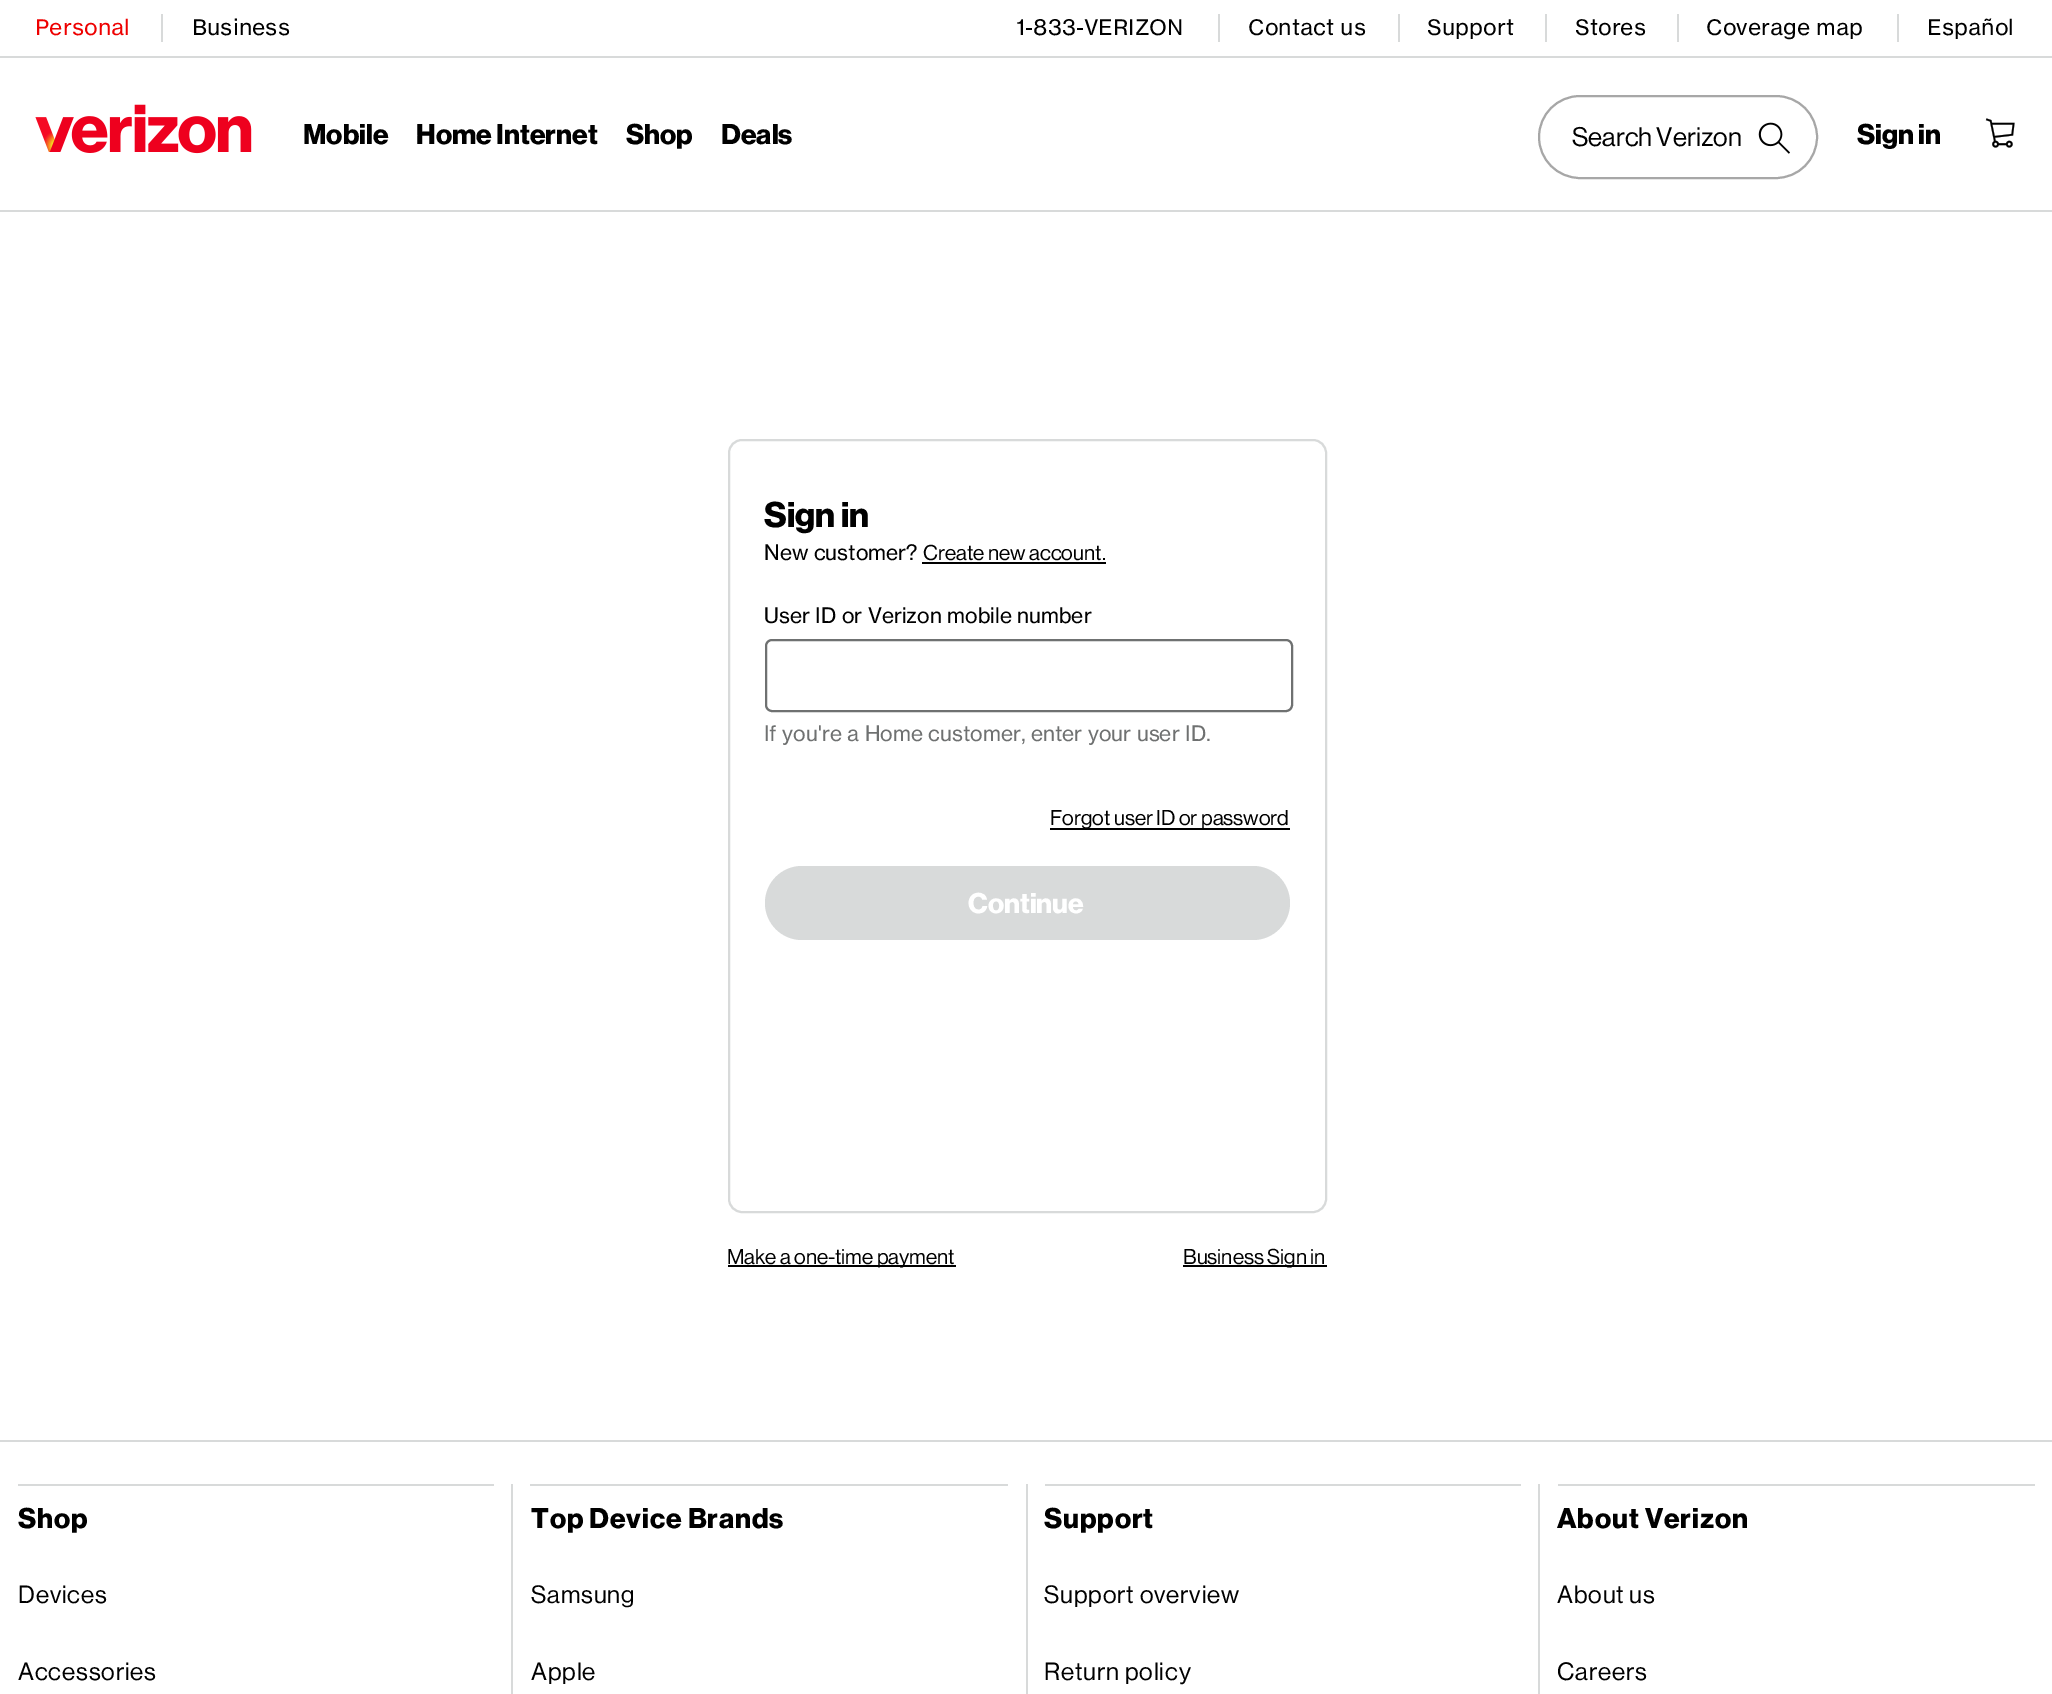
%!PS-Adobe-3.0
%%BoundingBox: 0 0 2052 1694
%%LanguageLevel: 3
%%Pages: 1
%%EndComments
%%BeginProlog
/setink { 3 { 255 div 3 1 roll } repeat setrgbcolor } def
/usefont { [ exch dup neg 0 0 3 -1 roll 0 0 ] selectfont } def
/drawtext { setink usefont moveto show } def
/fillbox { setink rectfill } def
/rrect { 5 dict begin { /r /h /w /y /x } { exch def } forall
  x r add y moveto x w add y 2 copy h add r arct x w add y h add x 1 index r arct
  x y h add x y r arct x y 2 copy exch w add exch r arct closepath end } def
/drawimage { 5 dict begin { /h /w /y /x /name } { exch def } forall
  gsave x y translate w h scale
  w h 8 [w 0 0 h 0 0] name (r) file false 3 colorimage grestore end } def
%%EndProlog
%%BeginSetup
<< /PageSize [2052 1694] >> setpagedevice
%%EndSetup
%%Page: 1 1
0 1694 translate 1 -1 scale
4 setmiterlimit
0 0 2052 1694 255 255 255 fillbox
0 210 2052 2 216 218 218 fillbox
(Personal) 35 35 /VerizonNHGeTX-Regular 21 238 0 0 drawtext
161 14 2 28 216 218 218 fillbox
(Business) 192 35 /VerizonNHGeTX-Regular 21 0 0 0 drawtext
(1-833-VERIZON) 1016 35 /VerizonNHGeTX-Regular 21 0 0 0 drawtext
1218 14 2 28 216 218 218 fillbox
(Contact us) 1248 35 /VerizonNHGeTX-Regular 21 0 0 0 drawtext
1398 14 2 28 216 218 218 fillbox
(Support) 1427 35 /VerizonNHGeTX-Regular 21 0 0 0 drawtext
1545 14 2 28 216 218 218 fillbox
(Stores) 1575 35 /VerizonNHGeTX-Regular 21 0 0 0 drawtext
1677 14 2 28 216 218 218 fillbox
(Coverage map) 1706 35 /VerizonNHGeTX-Regular 21 0 0 0 drawtext
1897 14 2 28 216 218 218 fillbox
(Español) 1927 35 /VerizonNHGeTX-Regular 21 0 0 0 drawtext
(assets/img1.rgb) 35 104 217 50 drawimage
(Mobile) 303 144 /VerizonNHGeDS-Bold 28 0 0 0 drawtext
(Home Internet) 416 144 /VerizonNHGeDS-Bold 28 0 0 0 drawtext
(Shop) 626 144 /VerizonNHGeDS-Bold 28 0 0 0 drawtext
(Deals) 721 144 /VerizonNHGeDS-Bold 28 0 0 0 drawtext
(assets/img2.rgb) 1758 122 32 32 drawimage
167 167 167 setink
2 setlinewidth
1539 96 278 82 41 rrect stroke
(Search Verizon) 1572 146 /VerizonNHGeDS-Regular 26.25 0 0 0 drawtext
(Sign in) 1857 144 /VerizonNHGeDS-Bold 28 0 0 0 drawtext
(assets/img3.rgb) 1985 118 30 30 drawimage
0 56 2052 2 216 218 218 fillbox
729 440 597 772 13 rrect stroke
(Sign in) 764 527 /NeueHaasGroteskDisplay-Bold 35 0 0 0 drawtext
(New customer?) 764 560 /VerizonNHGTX-Regular 21 0 0 0 drawtext
(Create new account.) 923 560 /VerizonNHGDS-Regular 21 0 0 0 drawtext
922 562 184 2 0 0 0 fillbox
(User ID or Verizon mobile number) 764 623 /VerizonNHGTX-Regular 21 0 0 0 drawtext
111 113 113 setink
766 640 526 71 6 rrect stroke
(If you're a Home customer, enter your user ID.) 764 741 /VerizonNHGTX-Regular 21 111 113 113 drawtext
1050 828 240 2 0 0 0 fillbox
(Forgot user ID or password) 1050 825 /VerizonNHGDS-Regular 21 0 0 0 drawtext
216 218 218 setink
765 866 525 74 37 rrect fill
(Continue) 968 913 /NeueHaasGroteskDisplay-Bold 28 255 255 255 drawtext
728 1265 228 2 0 0 0 fillbox
(Make a one-time payment) 727 1264 /VerizonNHGDS-Regular 21 0 0 0 drawtext
1183 1265 144 2 0 0 0 fillbox
(Business Sign in) 1183 1264 /VerizonNHGDS-Regular 21 0 0 0 drawtext
0 1440 2052 2 216 218 218 fillbox
511 1484 2 210 216 218 218 fillbox
18 1484 476 2 216 218 218 fillbox
/VerizonNHGeDS-Bold 28 usefont
0 0 0 setink
18 1528 moveto 0.9 0 (Shop) ashow
/VerizonNHGeDS-Regular 24.5 usefont
18 1603 moveto 0.9 0 (Devices) ashow
18 1680 moveto 0.9 0 (Accessories) ashow
1026 1484 2 210 216 218 218 fillbox
530 1484 478 2 216 218 218 fillbox
/VerizonNHGeDS-Bold 28 usefont
0 0 0 setink
531 1528 moveto 0.9 0 (Top Device Brands) ashow
/VerizonNHGeDS-Regular 24.5 usefont
531 1603 moveto 0.9 0 (Samsung) ashow
531 1680 moveto 0.9 0 (Apple) ashow
1538 1484 2 210 216 218 218 fillbox
1045 1484 476 2 216 218 218 fillbox
/VerizonNHGeDS-Bold 28 usefont
0 0 0 setink
1044 1528 moveto 0.9 0 (Support) ashow
/VerizonNHGeDS-Regular 24.5 usefont
1044 1603 moveto 0.9 0 (Support overview) ashow
1044 1680 moveto 0.9 0 (Return policy) ashow
1558 1484 477 2 216 218 218 fillbox
/VerizonNHGeDS-Bold 28 usefont
0 0 0 setink
1557 1528 moveto 0.9 0 (About Verizon) ashow
/VerizonNHGeDS-Regular 24.5 usefont
1557 1603 moveto 0.9 0 (About us) ashow
1557 1680 moveto 0.9 0 (Careers) ashow
showpage
%%EOF
